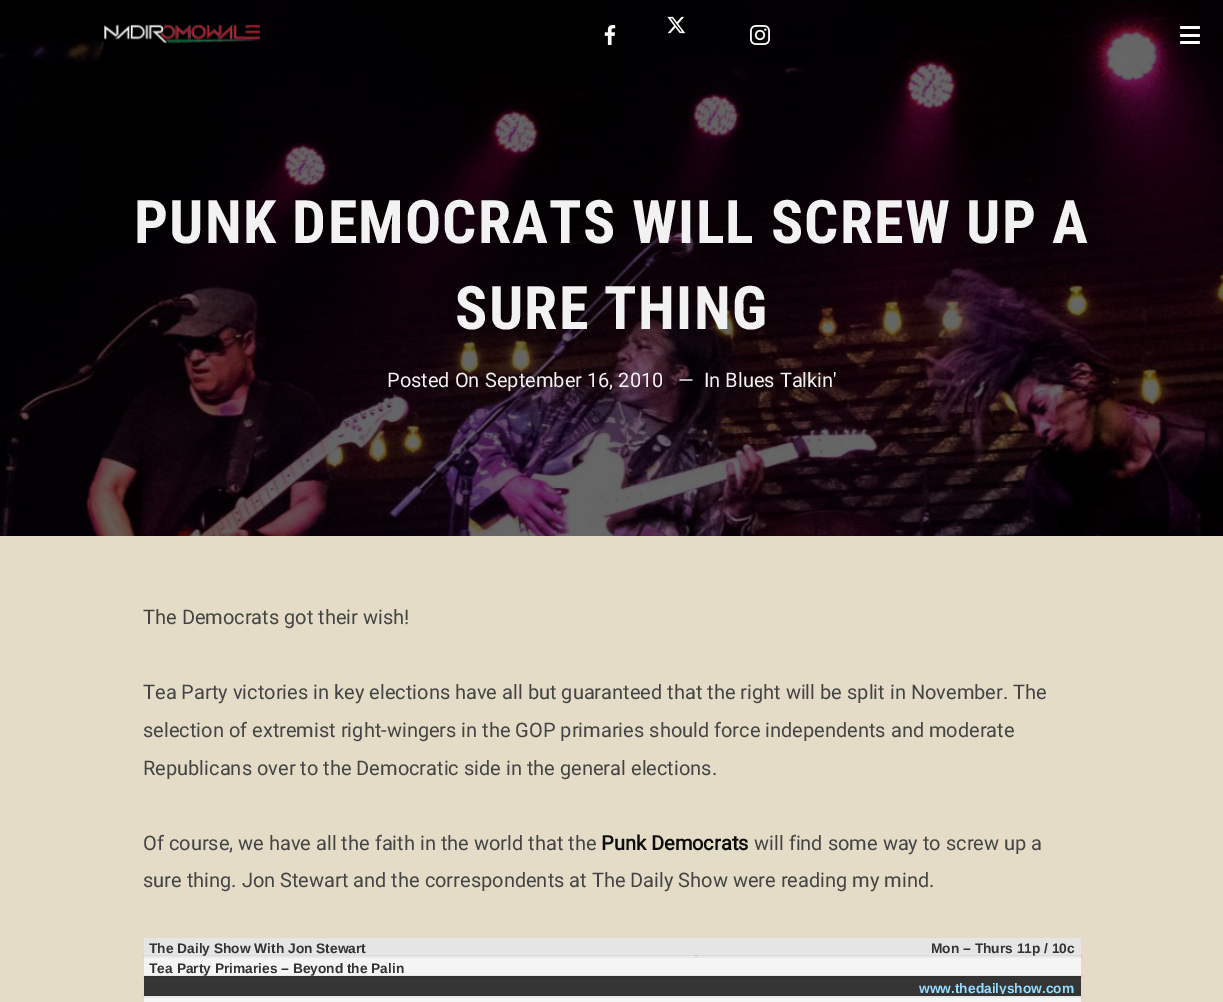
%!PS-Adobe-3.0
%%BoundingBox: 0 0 1223 1002
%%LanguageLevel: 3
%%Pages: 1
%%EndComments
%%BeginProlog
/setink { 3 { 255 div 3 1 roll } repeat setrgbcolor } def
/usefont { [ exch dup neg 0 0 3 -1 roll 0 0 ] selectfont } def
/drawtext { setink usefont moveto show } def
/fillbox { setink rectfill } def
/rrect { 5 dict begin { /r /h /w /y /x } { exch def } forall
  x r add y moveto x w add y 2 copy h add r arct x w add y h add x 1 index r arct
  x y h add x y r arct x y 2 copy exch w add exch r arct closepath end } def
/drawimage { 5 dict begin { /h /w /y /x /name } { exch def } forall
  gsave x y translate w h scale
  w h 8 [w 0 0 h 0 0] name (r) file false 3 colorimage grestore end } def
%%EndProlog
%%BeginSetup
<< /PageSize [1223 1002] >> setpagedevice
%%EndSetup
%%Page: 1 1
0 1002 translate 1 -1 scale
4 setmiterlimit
0 0 1223 1002 255 255 255 fillbox
(assets/img5.rgb) 0 0 1223 536 drawimage
(assets/img1.rgb) 104 24 156 20 drawimage
(assets/img2.rgb) 604 25 12 20 drawimage
(assets/img3.rgb) 667 16 19 18 drawimage
(assets/img4.rgb) 750 25 20 20 drawimage
1180 26 20 3 1.5 rrect fill
1180 34 20 3 1.5 rrect fill
1180 41 20 3 1.5 rrect fill
/RobotoCondensed-Bold 60 usefont
243 242 243 setink
134 243 moveto 1.25 0 (PUNK DEMOCRATS WILL SCREW UP A) ashow
455 329 moveto 1.25 0 (SURE THING) ashow
(Posted On) 387 387 /Roboto-Regular 20 243 242 243 drawtext
(September 16, 2010) 485 387 /Roboto-Regular 20 243 242 243 drawtext
(—) 678 387 /Roboto-Regular 20 243 242 243 drawtext
(In Blues Talkin') 704 387 /Roboto-Regular 20 243 242 243 drawtext
0 536 1223 466 228 220 198 fillbox
143 955 1 3 217 209 188 fillbox
1081 955 2 3 217 209 188 fillbox
143 975 940 3 217 209 188 fillbox
143 995 940 3 217 209 188 fillbox
(The Democrats got their wish!) 143 624 /Roboto-Regular 20 68 68 68 drawtext
(Tea Party victories in key elections have all but guaranteed that the right will be split in November. The) 143 699 /Roboto-Regular 20 68 68 68 drawtext
(selection of extremist right-wingers in the GOP primaries should force independents and moderate) 143 737 /Roboto-Regular 20 68 68 68 drawtext
(Republicans over to the Democratic side in the general elections.) 143 775 /Roboto-Regular 20 68 68 68 drawtext
(Of course, we have all the faith in the world that the) 143 850 /Roboto-Regular 20 68 68 68 drawtext
(Punk Democrats) 601 850 /Roboto-Bold 20 13 13 13 drawtext
(will find some way to screw up a) 754 850 /Roboto-Regular 20 68 68 68 drawtext
(sure thing. Jon Stewart and the correspondents at The Daily Show were reading my mind.) 143 887 /Roboto-Regular 20 68 68 68 drawtext
144 958 937 44 245 245 245 fillbox
144 956 937 2 233 233 233 fillbox
695 956 3 2 221 221 221 fillbox
144 975 937 1 233 233 233 fillbox
144 996 937 2 233 233 233 fillbox
144 938 937 17 229 229 229 fillbox
144 955 937 1 218 218 218 fillbox
695 955 3 1 207 207 207 fillbox
(The Daily Show With Jon Stewart) 149 953 /LiberationSans-Bold 13.75 51 51 51 drawtext
(Mon – Thurs 11p / 10c) 931 953 /LiberationSans-Bold 13.75 51 51 51 drawtext
(Tea Party Primaries – Beyond the Palin) 149 973 /LiberationSans-Bold 13.75 51 51 51 drawtext
144 978 937 17 53 53 53 fillbox
144 976 937 2 50 50 50 fillbox
144 995 937 1 50 50 50 fillbox
gsave
144 976 937 18 rectclip
(www.thedailyshow.com) 919 993 /LiberationSans-Bold 13.75 150 222 255 drawtext
grestore
showpage
%%EOF
